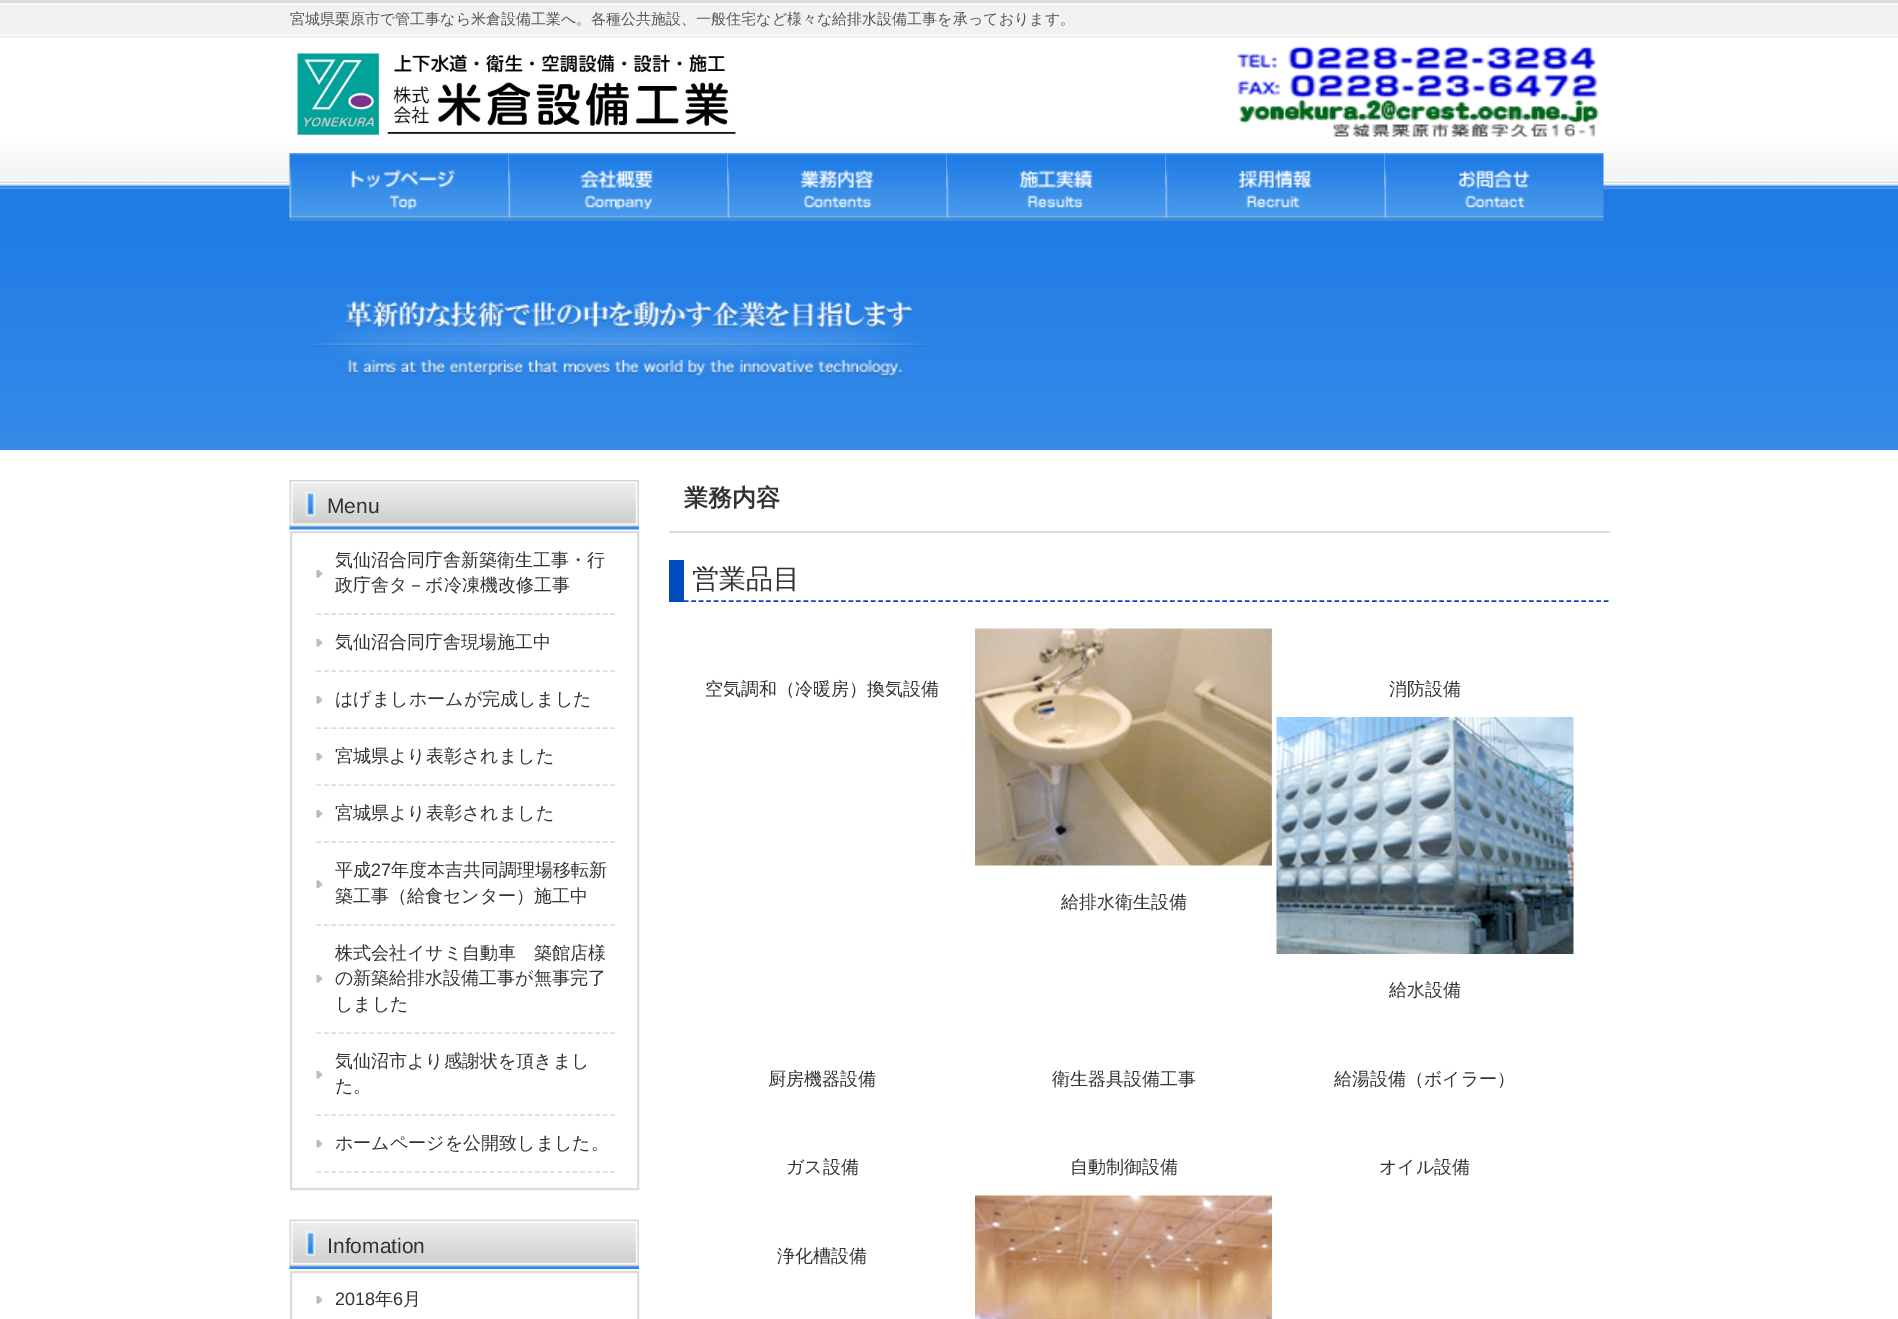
%!PS-Adobe-3.0
%%BoundingBox: 0 0 1898 1319
%%LanguageLevel: 3
%%Pages: 1
%%EndComments
%%BeginProlog
/setink { 3 { 255 div 3 1 roll } repeat setrgbcolor } def
/usefont { [ exch dup neg 0 0 3 -1 roll 0 0 ] selectfont } def
/drawtext { setink usefont moveto show } def
/fillbox { setink rectfill } def
/drawimage { 5 dict begin { /h /w /y /x /name } { exch def } forall
  gsave x y translate w h scale
  w h 8 [w 0 0 h 0 0] name (r) file false 3 colorimage grestore end } def
%%EndProlog
%%BeginSetup
<< /PageSize [1898 1319] >> setpagedevice
%%EndSetup
%%Page: 1 1
0 1319 translate 1 -1 scale
4 setmiterlimit
0 0 1898 1319 255 255 255 fillbox
(assets/img1.rgb) 0 0 1898 450 drawimage
(宮城県栗原市で管工事なら米倉設備工業へ。各種公共施設、一般住宅など様々な給排水設備工事を承っております。) 290 24 /WenQuanYiZenHei-Medium 15 85 85 85 drawtext
(assets/img2.rgb) 295 52 441 84 drawimage
(assets/img3.rgb) 1236 46 363 91 drawimage
(assets/img4.rgb) 289 153 220 68 drawimage
(assets/img5.rgb) 508 153 220 68 drawimage
(assets/img6.rgb) 727 153 220 68 drawimage
(assets/img7.rgb) 946 153 220 68 drawimage
(assets/img8.rgb) 1165 153 220 68 drawimage
(assets/img9.rgb) 1384 153 220 68 drawimage
(assets/img10.rgb) 307 297 630 80 drawimage
(assets/img11.rgb) 289 480 350 50 drawimage
(Menu) 327 513 /LiberationSans-Regular 21 51 51 51 drawtext
220 220 220 setink
2 setlinewidth
291 532 347 657 rectstroke
1.5 setlinewidth
[4.5 3.04] 0 setdash
316.5 614 moveto 615 614 lineto stroke
(assets/img12.rgb) 316 570 7 8 drawimage
(気仙沼合同庁舎新築衛生工事・行) 335 566 /WenQuanYiZenHei-Medium 18 51 51 51 drawtext
(政庁舎タ－ボ冷凍機改修工事) 335 591 /WenQuanYiZenHei-Medium 18 51 51 51 drawtext
220 220 220 setink
316.5 671 moveto 615 671 lineto stroke
(assets/img12.rgb) 316 639 7 8 drawimage
(気仙沼合同庁舎現場施工中) 335 648 /WenQuanYiZenHei-Medium 18 51 51 51 drawtext
220 220 220 setink
316.5 728 moveto 615 728 lineto stroke
(assets/img12.rgb) 316 696 7 8 drawimage
(はげましホームが完成しました) 335 705 /WenQuanYiZenHei-Medium 18 51 51 51 drawtext
220 220 220 setink
316.5 785 moveto 615 785 lineto stroke
(assets/img12.rgb) 316 753 7 8 drawimage
(宮城県より表彰されました) 335 762 /WenQuanYiZenHei-Medium 18 51 51 51 drawtext
220 220 220 setink
316.5 842 moveto 615 842 lineto stroke
(assets/img12.rgb) 316 810 7 8 drawimage
(宮城県より表彰されました) 335 819 /WenQuanYiZenHei-Medium 18 51 51 51 drawtext
220 220 220 setink
316.5 925 moveto 615 925 lineto stroke
(assets/img13.rgb) 316 880 7 8 drawimage
(平成) 335 876 /WenQuanYiZenHei-Medium 18 51 51 51 drawtext
(27) 371 876 /LiberationSans-Regular 18 51 51 51 drawtext
(年度本吉共同調理場移転新) 391 876 /WenQuanYiZenHei-Medium 18 51 51 51 drawtext
(築工事（給食センター）施工中) 335 902 /WenQuanYiZenHei-Medium 18 51 51 51 drawtext
220 220 220 setink
316.5 1033 moveto 615 1033 lineto stroke
(assets/img12.rgb) 316 975 7 8 drawimage
(株式会社イサミ自動車　築館店様) 335 959 /WenQuanYiZenHei-Medium 18 51 51 51 drawtext
(の新築給排水設備工事が無事完了) 335 984 /WenQuanYiZenHei-Medium 18 51 51 51 drawtext
(しました) 335 1010 /WenQuanYiZenHei-Medium 18 51 51 51 drawtext
220 220 220 setink
316.5 1115 moveto 615 1115 lineto stroke
(assets/img12.rgb) 316 1071 7 8 drawimage
(気仙沼市より感謝状を頂きまし) 335 1067 /WenQuanYiZenHei-Medium 18 51 51 51 drawtext
(た。) 335 1092 /WenQuanYiZenHei-Medium 18 51 51 51 drawtext
220 220 220 setink
316.5 1172 moveto 615 1172 lineto stroke
(assets/img12.rgb) 316 1140 7 8 drawimage
(ホームページを公開致しました。) 335 1149 /WenQuanYiZenHei-Medium 18 51 51 51 drawtext
(assets/img14.rgb) 289 1219 350 50 drawimage
(Infomation) 327 1253 /LiberationSans-Regular 21 51 51 51 drawtext
220 220 220 setink
2 setlinewidth
[] 0 setdash
291 1272 347 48 rectstroke
(assets/img12.rgb) 316 1296 7 8 drawimage
(2018) 335 1305 /LiberationSans-Regular 18 51 51 51 drawtext
(年) 375 1305 /WenQuanYiZenHei-Medium 18 51 51 51 drawtext
(6) 393 1305 /LiberationSans-Regular 18 51 51 51 drawtext
(月) 403 1305 /WenQuanYiZenHei-Medium 18 51 51 51 drawtext
669 531 941 2 220 220 220 fillbox
(業務内容) 684 506 /WenQuanYiZenHei-Bold 24 51 51 51 drawtext
0 76 191 setink
1.5 setlinewidth
[4.5 2.98] 0 setdash
669 601 moveto 1609.5 601 lineto stroke
669 560 15 42 0 76 191 fillbox
(営業品目) 692 588 /WenQuanYiZenHei-Medium 27 51 51 51 drawtext
(空気調和（冷暖房）換気設備) 705 695 /WenQuanYiZenHei-Medium 18 51 51 51 drawtext
(消防設備) 1389 695 /WenQuanYiZenHei-Medium 18 51 51 51 drawtext
(assets/img15.rgb) 975 628 297 238 drawimage
(給排水衛生設備) 1061 908 /WenQuanYiZenHei-Medium 18 51 51 51 drawtext
(assets/img16.rgb) 1276 717 298 237 drawimage
(給水設備) 1389 996 /WenQuanYiZenHei-Medium 18 51 51 51 drawtext
(厨房機器設備) 768 1085 /WenQuanYiZenHei-Medium 18 51 51 51 drawtext
(衛生器具設備工事) 1052 1085 /WenQuanYiZenHei-Medium 18 51 51 51 drawtext
(給湯設備（ボイラー）) 1334 1085 /WenQuanYiZenHei-Medium 18 51 51 51 drawtext
(ガス設備) 786 1173 /WenQuanYiZenHei-Medium 18 51 51 51 drawtext
(自動制御設備) 1070 1173 /WenQuanYiZenHei-Medium 18 51 51 51 drawtext
(オイル設備) 1379 1173 /WenQuanYiZenHei-Medium 18 51 51 51 drawtext
(浄化槽設備) 777 1262 /WenQuanYiZenHei-Medium 18 51 51 51 drawtext
(assets/img17.rgb) 975 1195 297 124 drawimage
showpage
%%EOF
